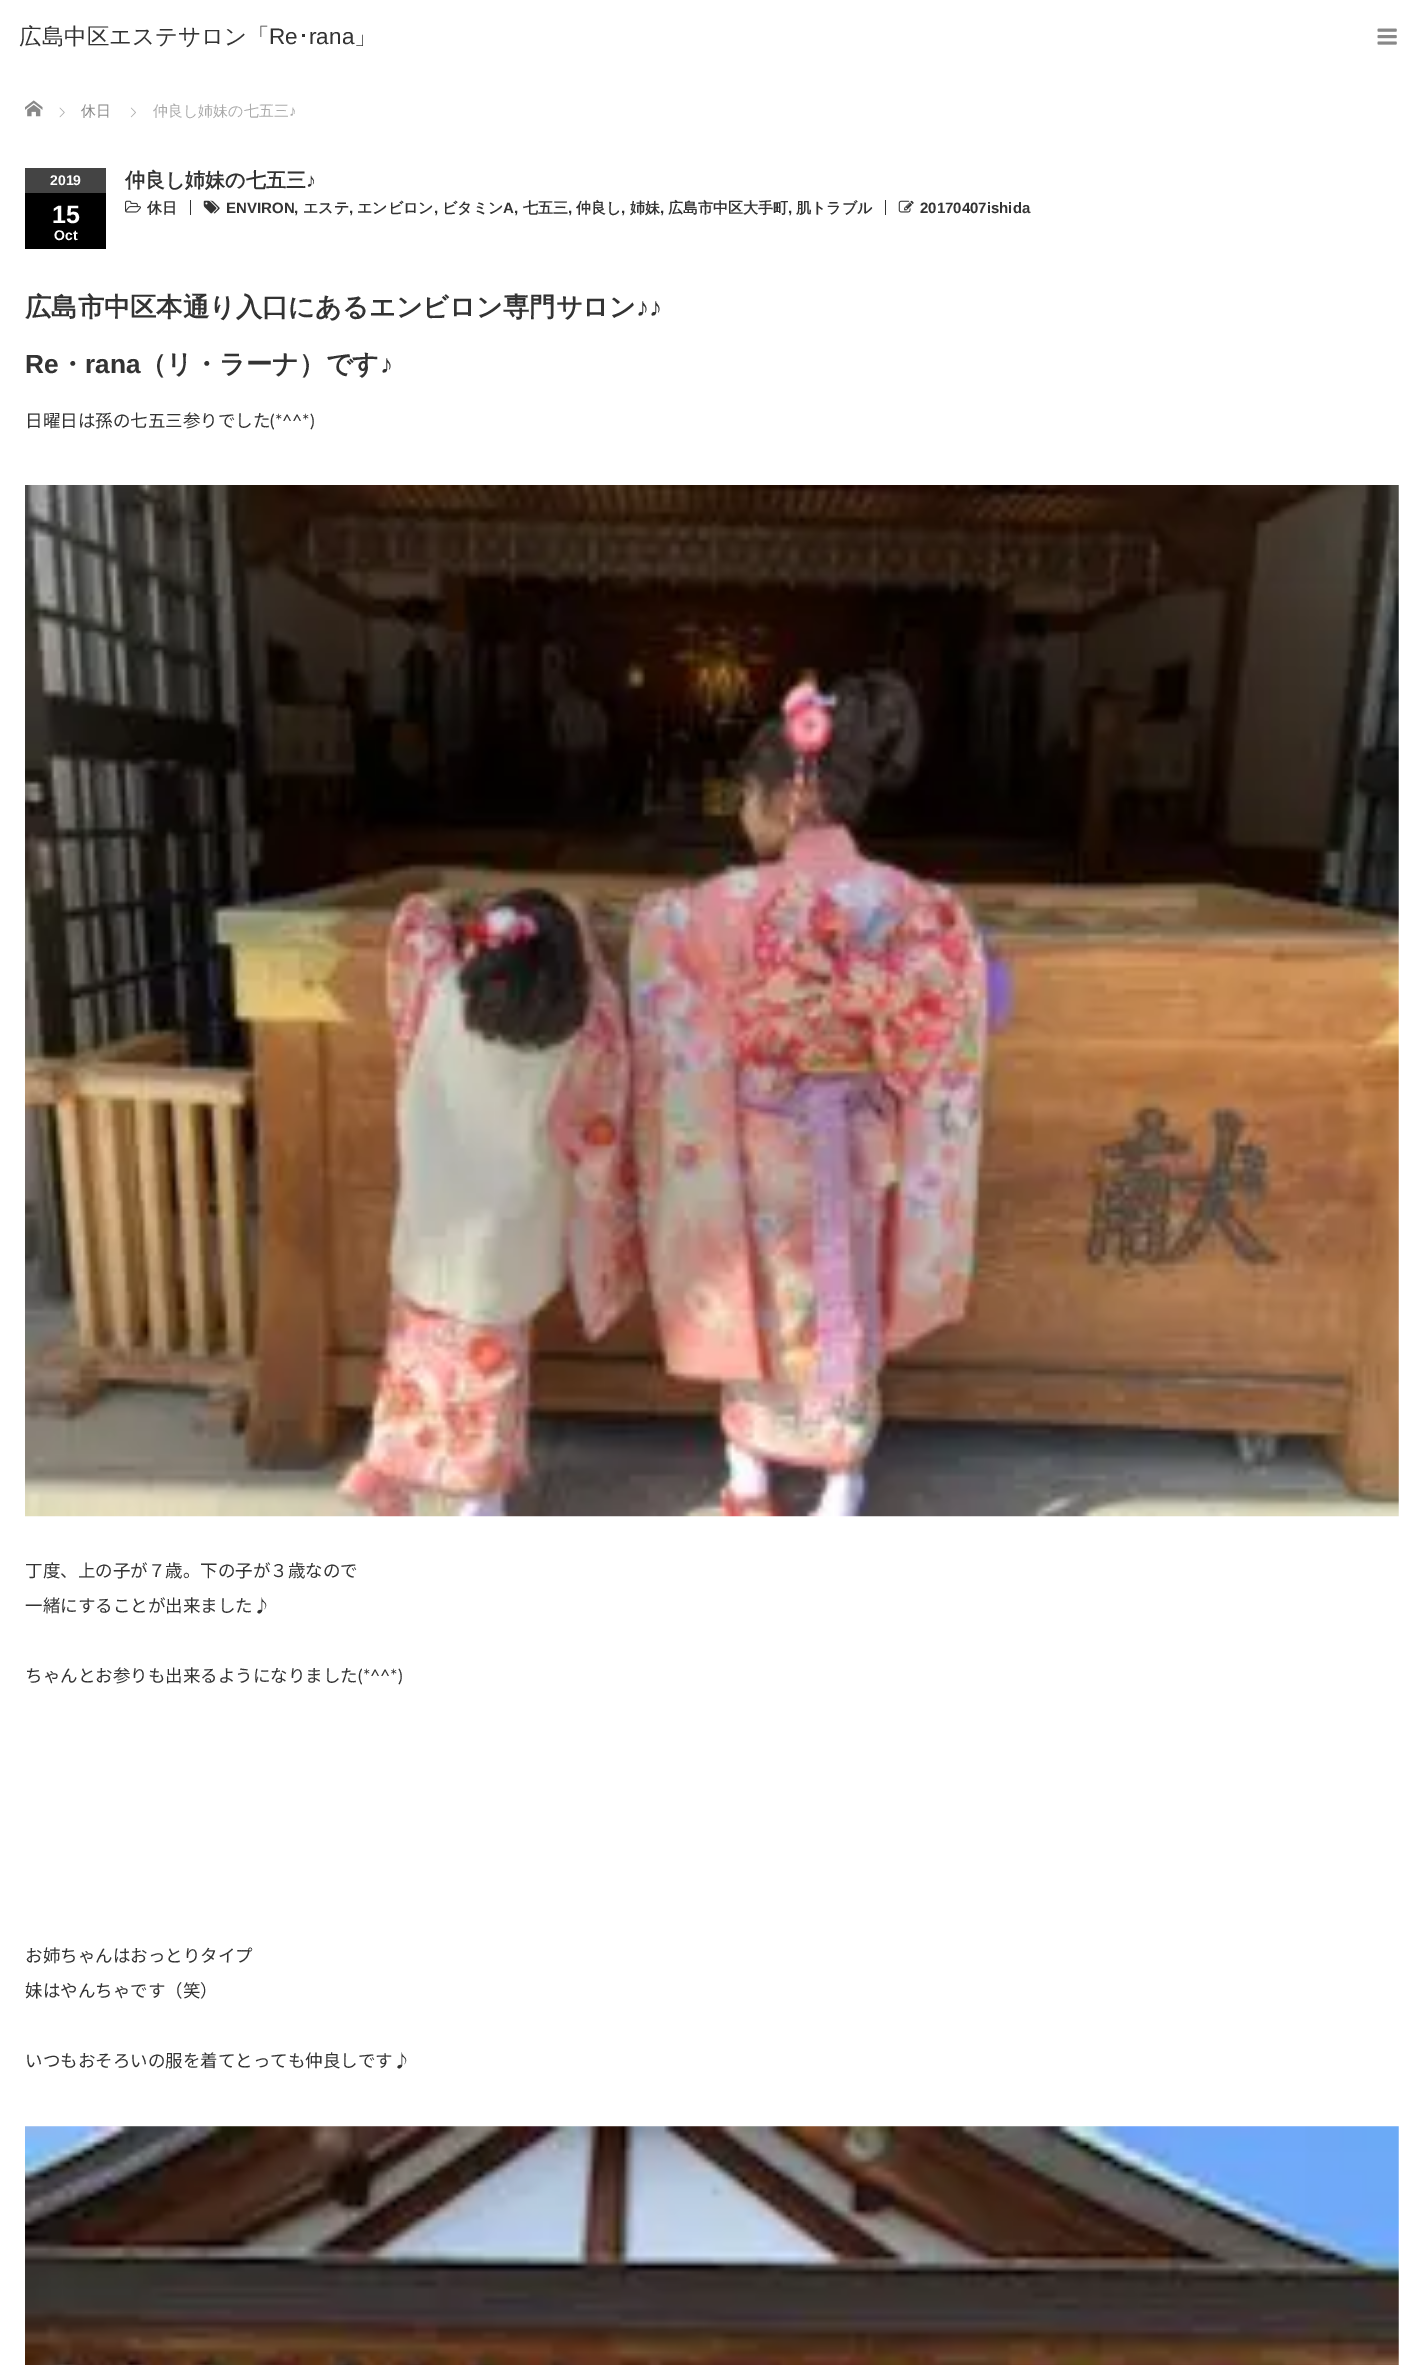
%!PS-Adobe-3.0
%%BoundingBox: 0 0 1423 2365
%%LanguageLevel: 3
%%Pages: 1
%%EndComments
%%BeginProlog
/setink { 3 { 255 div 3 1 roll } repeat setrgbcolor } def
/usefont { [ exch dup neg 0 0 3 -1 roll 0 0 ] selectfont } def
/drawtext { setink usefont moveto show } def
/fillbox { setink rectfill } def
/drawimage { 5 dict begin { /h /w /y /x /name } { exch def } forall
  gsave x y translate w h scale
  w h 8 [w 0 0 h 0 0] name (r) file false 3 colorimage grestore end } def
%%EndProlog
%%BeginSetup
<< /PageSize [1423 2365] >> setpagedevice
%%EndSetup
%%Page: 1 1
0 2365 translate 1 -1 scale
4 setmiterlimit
0 0 1423 2365 255 255 255 fillbox
(広島中区エステサロン「) 19 44 /WenQuanYiZenHei-Medium 22.5 51 51 51 drawtext
(Re) 269 44 /LiberationSans-Regular 22.5 51 51 51 drawtext
(･) 298 44 /IPAGothic-Regular 22.5 51 51 51 drawtext
(rana) 309 44 /LiberationSans-Regular 22.5 51 51 51 drawtext
(」) 354 44 /WenQuanYiZenHei-Medium 22.5 51 51 51 drawtext
(assets/img1.rgb) 1377 28 20 17 drawimage
(assets/img2.rgb) 25 100 18 17 drawimage
(assets/img3.rgb) 59 107 6 11 drawimage
(休日) 81 116 /WenQuanYiZenHei-Medium 15 136 136 136 drawtext
(assets/img4.rgb) 130 107 6 11 drawimage
(仲良し姉妹の七五三) 153 116 /WenQuanYiZenHei-Medium 15 170 170 170 drawtext
(♪) 289 116 /LiberationSans-Regular 15 170 170 170 drawtext
(仲良し姉妹の七五三) 125 187 /WenQuanYiZenHei-Bold 20 51 51 51 drawtext
(♪) 306 187 /LiberationSans-Bold 20 51 51 51 drawtext
190 200 1 15 51 51 51 fillbox
(assets/img5.rgb) 125 200 16 13 drawimage
(休日) 147 213 /WenQuanYiZenHei-Bold 15 51 51 51 drawtext
885 200 1 15 51 51 51 fillbox
(assets/img6.rgb) 203 200 17 14 drawimage
(ENVIRON,) 226 213 /LiberationSans-Bold 15 51 51 51 drawtext
(エステ) 303 213 /WenQuanYiZenHei-Bold 15 51 51 51 drawtext
(,) 349 213 /LiberationSans-Bold 15 51 51 51 drawtext
(エンビロン) 357 213 /WenQuanYiZenHei-Bold 15 51 51 51 drawtext
(,) 434 213 /LiberationSans-Bold 15 51 51 51 drawtext
(ビタミン) 442 213 /WenQuanYiZenHei-Bold 15 51 51 51 drawtext
(A,) 503 213 /LiberationSans-Bold 15 51 51 51 drawtext
(七五三) 523 213 /WenQuanYiZenHei-Bold 15 51 51 51 drawtext
(,) 568 213 /LiberationSans-Bold 15 51 51 51 drawtext
(仲良し) 576 213 /WenQuanYiZenHei-Bold 15 51 51 51 drawtext
(,) 621 213 /LiberationSans-Bold 15 51 51 51 drawtext
(姉妹) 630 213 /WenQuanYiZenHei-Bold 15 51 51 51 drawtext
(,) 660 213 /LiberationSans-Bold 15 51 51 51 drawtext
(広島市中区大手町) 668 213 /WenQuanYiZenHei-Bold 15 51 51 51 drawtext
(,) 788 213 /LiberationSans-Bold 15 51 51 51 drawtext
(肌トラブル) 796 213 /WenQuanYiZenHei-Bold 15 51 51 51 drawtext
(assets/img7.rgb) 898 200 16 13 drawimage
(20170407ishida) 920 213 /LiberationSans-Bold 15 51 51 51 drawtext
(広島市中区本通り入口にあるエンビロン専門サロン) 25 316 /WenQuanYiZenHei-Bold 26.25 51 51 51 drawtext
(♪♪) 636 316 /LiberationSans-Bold 26.25 51 51 51 drawtext
(Re) 25 373 /LiberationSans-Bold 26.25 51 51 51 drawtext
(・) 59 373 /WenQuanYiZenHei-Bold 26.25 51 51 51 drawtext
(rana) 85 373 /LiberationSans-Bold 26.25 51 51 51 drawtext
(（リ・ラーナ）です) 140 373 /WenQuanYiZenHei-Bold 26.25 51 51 51 drawtext
(♪) 380 373 /LiberationSans-Bold 26.25 51 51 51 drawtext
(日曜日は孫の七五三参りでした) 25 427 /NotoSansJP-Regular 17.5 51 51 51 drawtext
(\(*^^*\)) 270 427 /Lato-Regular 17.5 51 51 51 drawtext
(assets/img8.rgb) 25 485 1374 1032 drawimage
(丁度、上の子が７歳。下の子が３歳なので) 25 1577 /NotoSansJP-Regular 17.5 51 51 51 drawtext
(一緒にすることが出来ました♪) 25 1612 /NotoSansJP-Regular 17.5 51 51 51 drawtext
(ちゃんとお参りも出来るようになりました) 25 1682 /NotoSansJP-Regular 17.5 51 51 51 drawtext
(\(*^^*\)) 358 1682 /Lato-Regular 17.5 51 51 51 drawtext
(お姉ちゃんはおっとりタイプ) 25 1962 /NotoSansJP-Regular 17.5 51 51 51 drawtext
(妹はやんちゃです（笑）) 25 1997 /NotoSansJP-Regular 17.5 51 51 51 drawtext
(いつもおそろいの服を着てとっても仲良しです♪) 25 2067 /NotoSansJP-Regular 17.5 51 51 51 drawtext
(assets/img9.rgb) 25 2126 1374 239 drawimage
25 193 81 56 0 0 0 fillbox
25 168 81 25 68 68 68 fillbox
(2019) 50 185 /LiberationSans-Bold 14 255 255 255 drawtext
(15) 52 223 /LiberationSans-Bold 25 255 255 255 drawtext
(Oct) 54 240 /LiberationSans-Bold 14 255 255 255 drawtext
showpage
%%EOF
